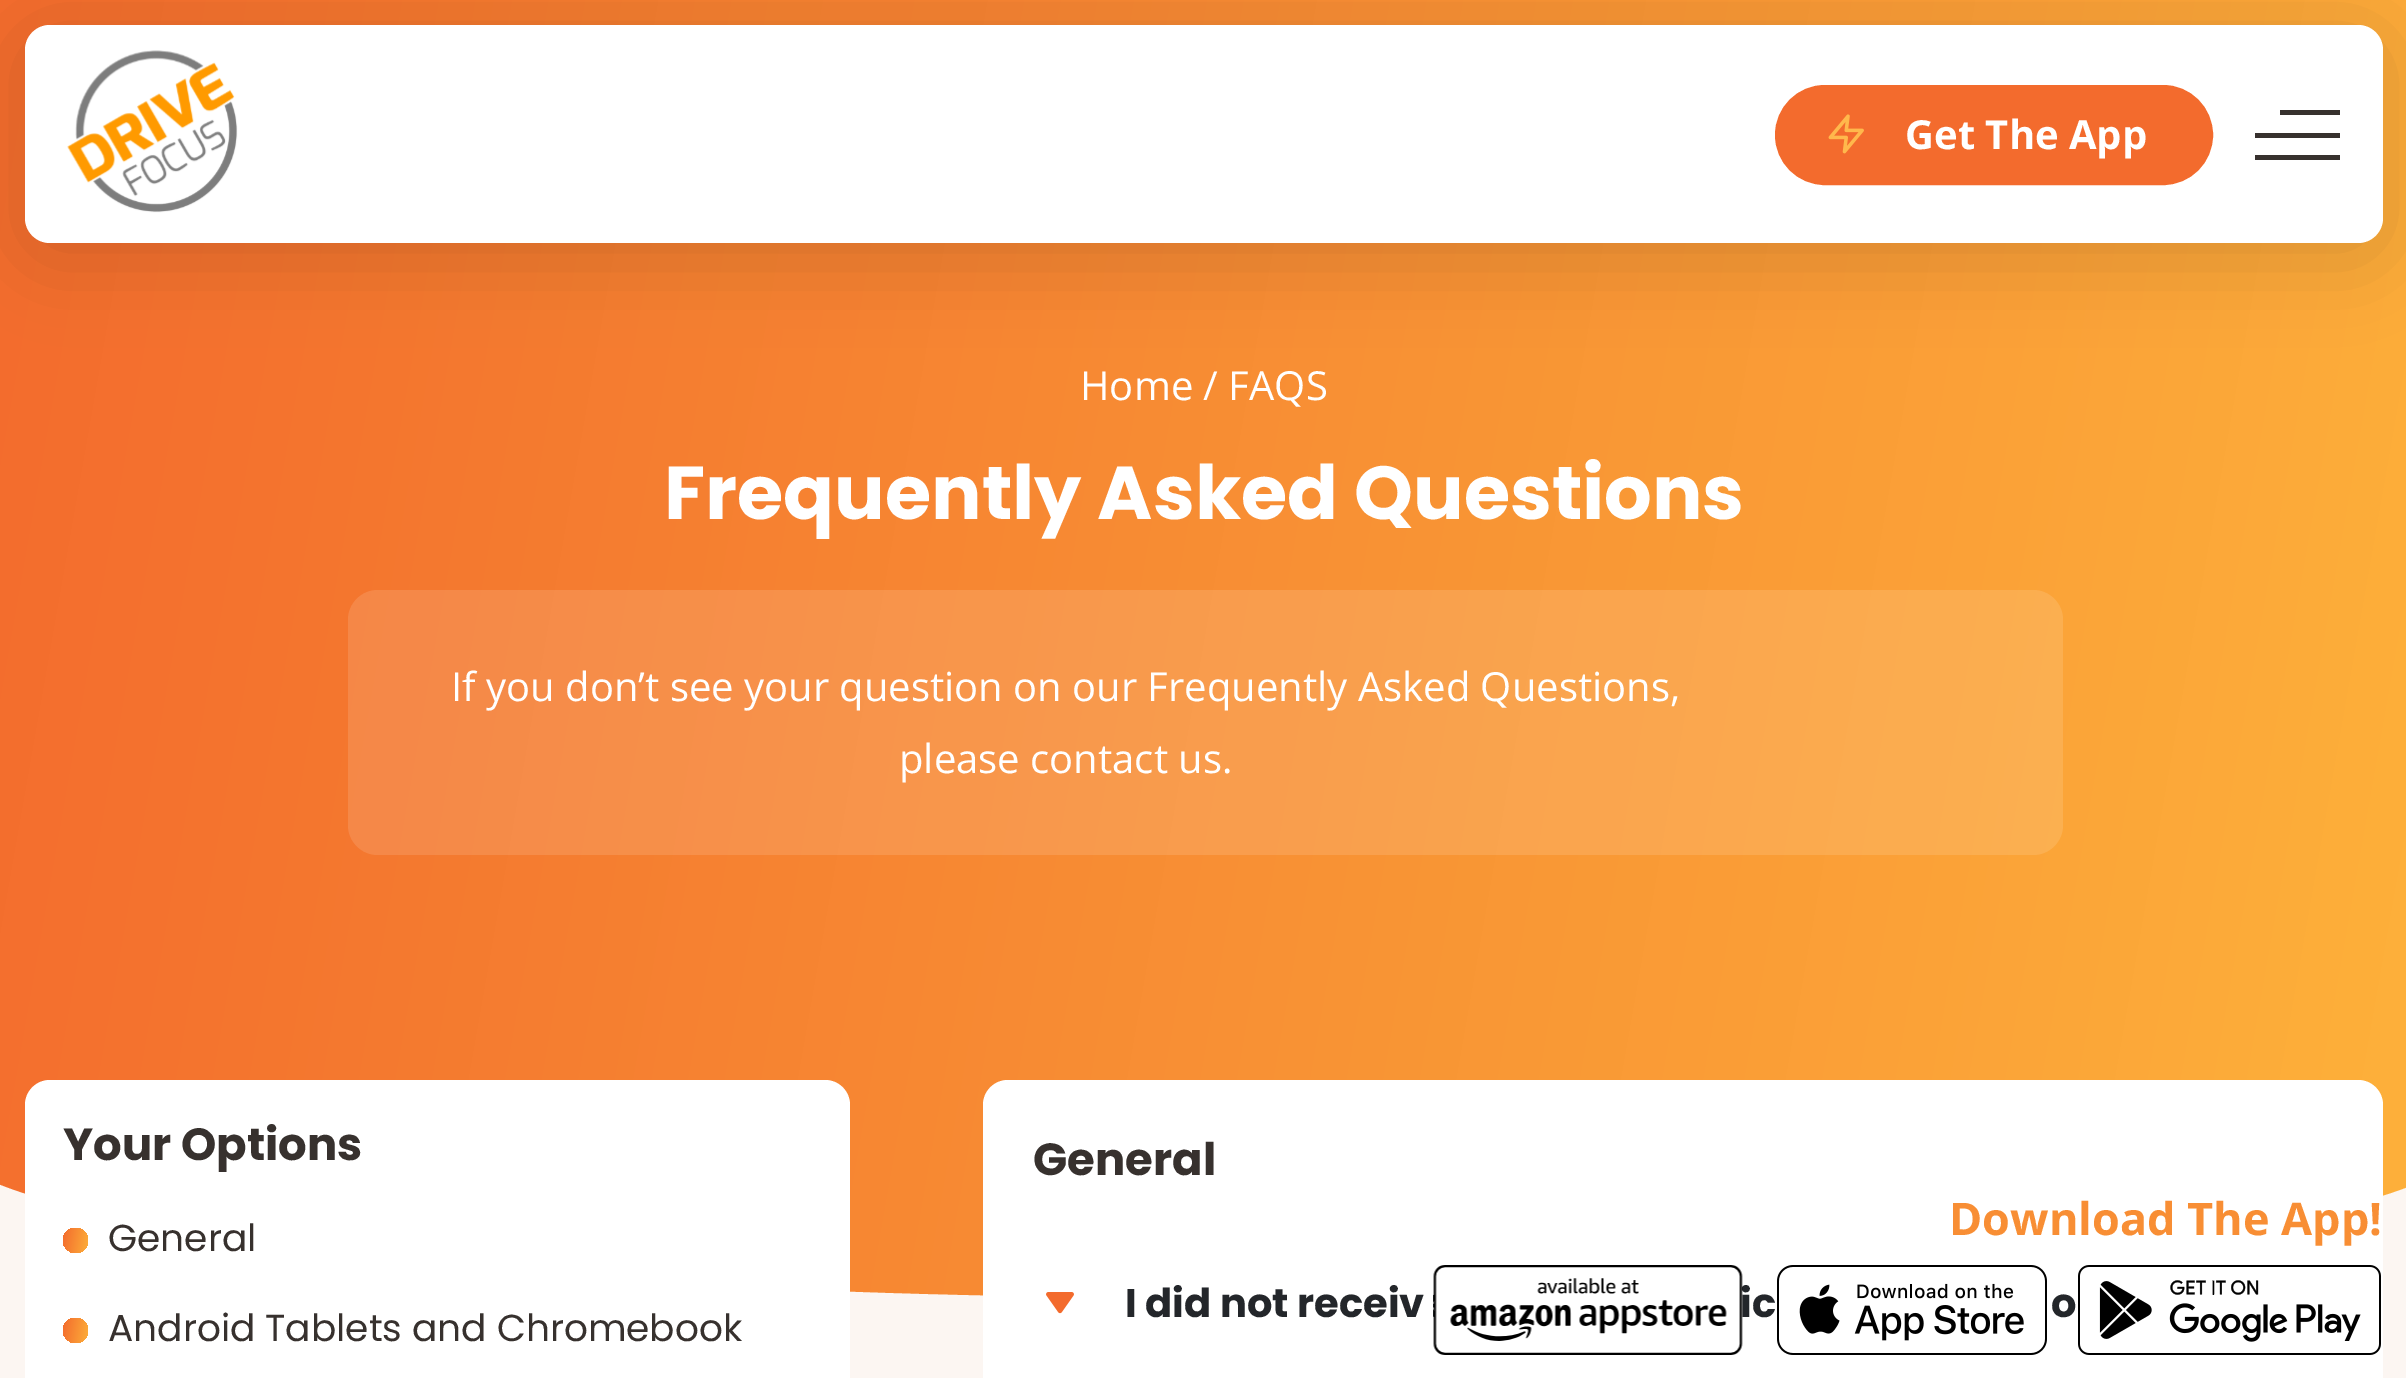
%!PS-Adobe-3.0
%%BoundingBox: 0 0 2406 1378
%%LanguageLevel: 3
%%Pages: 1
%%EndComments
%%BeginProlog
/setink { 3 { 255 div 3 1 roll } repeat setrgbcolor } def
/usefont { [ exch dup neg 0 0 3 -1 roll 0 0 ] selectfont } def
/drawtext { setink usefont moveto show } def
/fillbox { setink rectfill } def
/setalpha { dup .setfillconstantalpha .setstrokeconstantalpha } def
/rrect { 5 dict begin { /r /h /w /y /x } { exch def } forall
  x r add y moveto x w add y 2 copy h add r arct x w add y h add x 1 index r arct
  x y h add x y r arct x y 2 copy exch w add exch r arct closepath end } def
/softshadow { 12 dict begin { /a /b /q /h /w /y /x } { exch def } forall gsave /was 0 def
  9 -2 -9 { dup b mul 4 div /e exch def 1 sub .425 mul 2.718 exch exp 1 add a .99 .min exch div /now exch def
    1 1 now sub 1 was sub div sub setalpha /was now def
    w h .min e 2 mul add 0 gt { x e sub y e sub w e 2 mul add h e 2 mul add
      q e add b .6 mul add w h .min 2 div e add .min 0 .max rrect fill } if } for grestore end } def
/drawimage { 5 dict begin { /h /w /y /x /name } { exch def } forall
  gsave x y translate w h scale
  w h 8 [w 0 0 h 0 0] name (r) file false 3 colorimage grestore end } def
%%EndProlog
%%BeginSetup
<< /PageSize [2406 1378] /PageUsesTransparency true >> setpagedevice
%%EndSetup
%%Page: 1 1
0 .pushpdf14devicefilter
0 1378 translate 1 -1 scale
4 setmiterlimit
0 0 2406 1378 252 246 242 fillbox
gsave 0 0 moveto 2406 0 lineto 2406 1296 lineto 0 1296 lineto closepath clip newpath
<< /ShadingType 2 /ColorSpace /DeviceRGB /Coords [-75 425 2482 875] /Extend [true true] /Function << /FunctionType 3 /Domain [0 1] /Functions [<< /FunctionType 2 /Domain [0 1] /C0 [0.953 0.42 0.176] /C1 [0.953 0.42 0.176] /N 1 >> << /FunctionType 2 /Domain [0 1] /C0 [0.953 0.42 0.176] /C1 [0.992 0.686 0.227] /N 1 >> << /FunctionType 2 /Domain [0 1] /C0 [0.992 0.686 0.227] /C1 [0.992 0.686 0.227] /N 1 >>] /Bounds [0.01 0.97] /Encode [0 1 0 1 0 1] >> >> shfill grestore
0 0 0 setink
18 30 2372 233 33 37.5 0.12 softshadow
255 255 255 setink
25 25 2358 218 25 rrect fill
(assets/img1.rgb) 67 50 171 163 drawimage
243 107 45 setink
1777.5 87.5 433 95 47.5 rrect gsave fill grestore
5 setlinewidth
stroke
(assets/img2.rgb) 1828 114 36 40 drawimage
(Get The App) 1905 149 /OpenSans-Bold 40 255 255 255 drawtext
2280 110 60 5 55 49 46 fillbox
2255 133 85 5 55 49 46 fillbox
2255 155 85 5 55 49 46 fillbox
(Home / FAQS) 1080 400 /OpenSans-Regular 40 255 255 255 drawtext
(Frequently Asked Questions) 664 519 /Poppins-Bold 75 255 255 255 drawtext
0.12 setalpha
348 590 1715 265 30 rrect fill
1 setalpha
(If you don’t see your question on our Frequently Asked Questions,) 451 701 /OpenSans-Regular 40 255 255 255 drawtext
(please contact us.) 899 773 /OpenSans-Regular 40 255 255 255 drawtext
252 246 242 setink
1205 1298 moveto 278 1297 -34 1190 -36 1162 curveto -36 1302 lineto 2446 1302 lineto 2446 1164 lineto 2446 1190 2132 1299 1205 1298 curveto closepath fill
255 255 255 setink
25 1080 825 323 25 rrect fill
(Your Options) 63 1160 /Poppins-Bold 45 55 49 46 drawtext
gsave 75.5 1228 moveto 68.5 1228 63 1233.5 63 1240.5 curveto 63 1247 69 1253 75.5 1253 curveto 82.5 1253 88 1247.5 88 1240.5 curveto 88 1233.5 82.5 1228 75.5 1228 curveto closepath clip newpath
<< /ShadingType 2 /ColorSpace /DeviceRGB /Coords [63 1228 92 1233] /Extend [true true] /Function << /FunctionType 2 /Domain [0 1] /C0 [0.953 0.42 0.176] /C1 [0.992 0.686 0.227] /N 1 >> >> shfill grestore
(General) 108 1251 /Poppins-Regular 37.5 55 49 46 drawtext
gsave 75.5 1318 moveto 68.5 1318 63 1323.5 63 1330.5 curveto 63 1337 69 1343 75.5 1343 curveto 82.5 1343 88 1337.5 88 1330.5 curveto 88 1323.5 82.5 1318 75.5 1318 curveto closepath clip newpath
<< /ShadingType 2 /ColorSpace /DeviceRGB /Coords [63 1318 92 1323] /Extend [true true] /Function << /FunctionType 2 /Domain [0 1] /C0 [0.953 0.42 0.176] /C1 [0.992 0.686 0.227] /N 1 >> >> shfill grestore
(Android Tablets and Chromebook) 108 1341 /Poppins-Regular 37.5 55 49 46 drawtext
255 255 255 setink
983 1080 1400 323 25 rrect fill
(General) 1033 1175 /Poppins-Bold 45 55 49 46 drawtext
(assets/img3.rgb) 1046 1292 28 22 drawimage
(I did not receiv) 1125 1317 /Poppins-Bold 40 35 38 42 drawtext
(ic) 1740 1317 /Poppins-Bold 40 35 38 42 drawtext
(o) 2051 1317 /Poppins-Bold 40 35 38 42 drawtext
(Download The App!) 1949 1235 /OpenSans-Bold 45 248 142 52 drawtext
(assets/img4.rgb) 1433 1265 310 90 drawimage
(assets/img5.rgb) 1777 1265 270 90 drawimage
(assets/img6.rgb) 2078 1265 303 90 drawimage
.poppdf14devicefilter showpage
%%EOF
